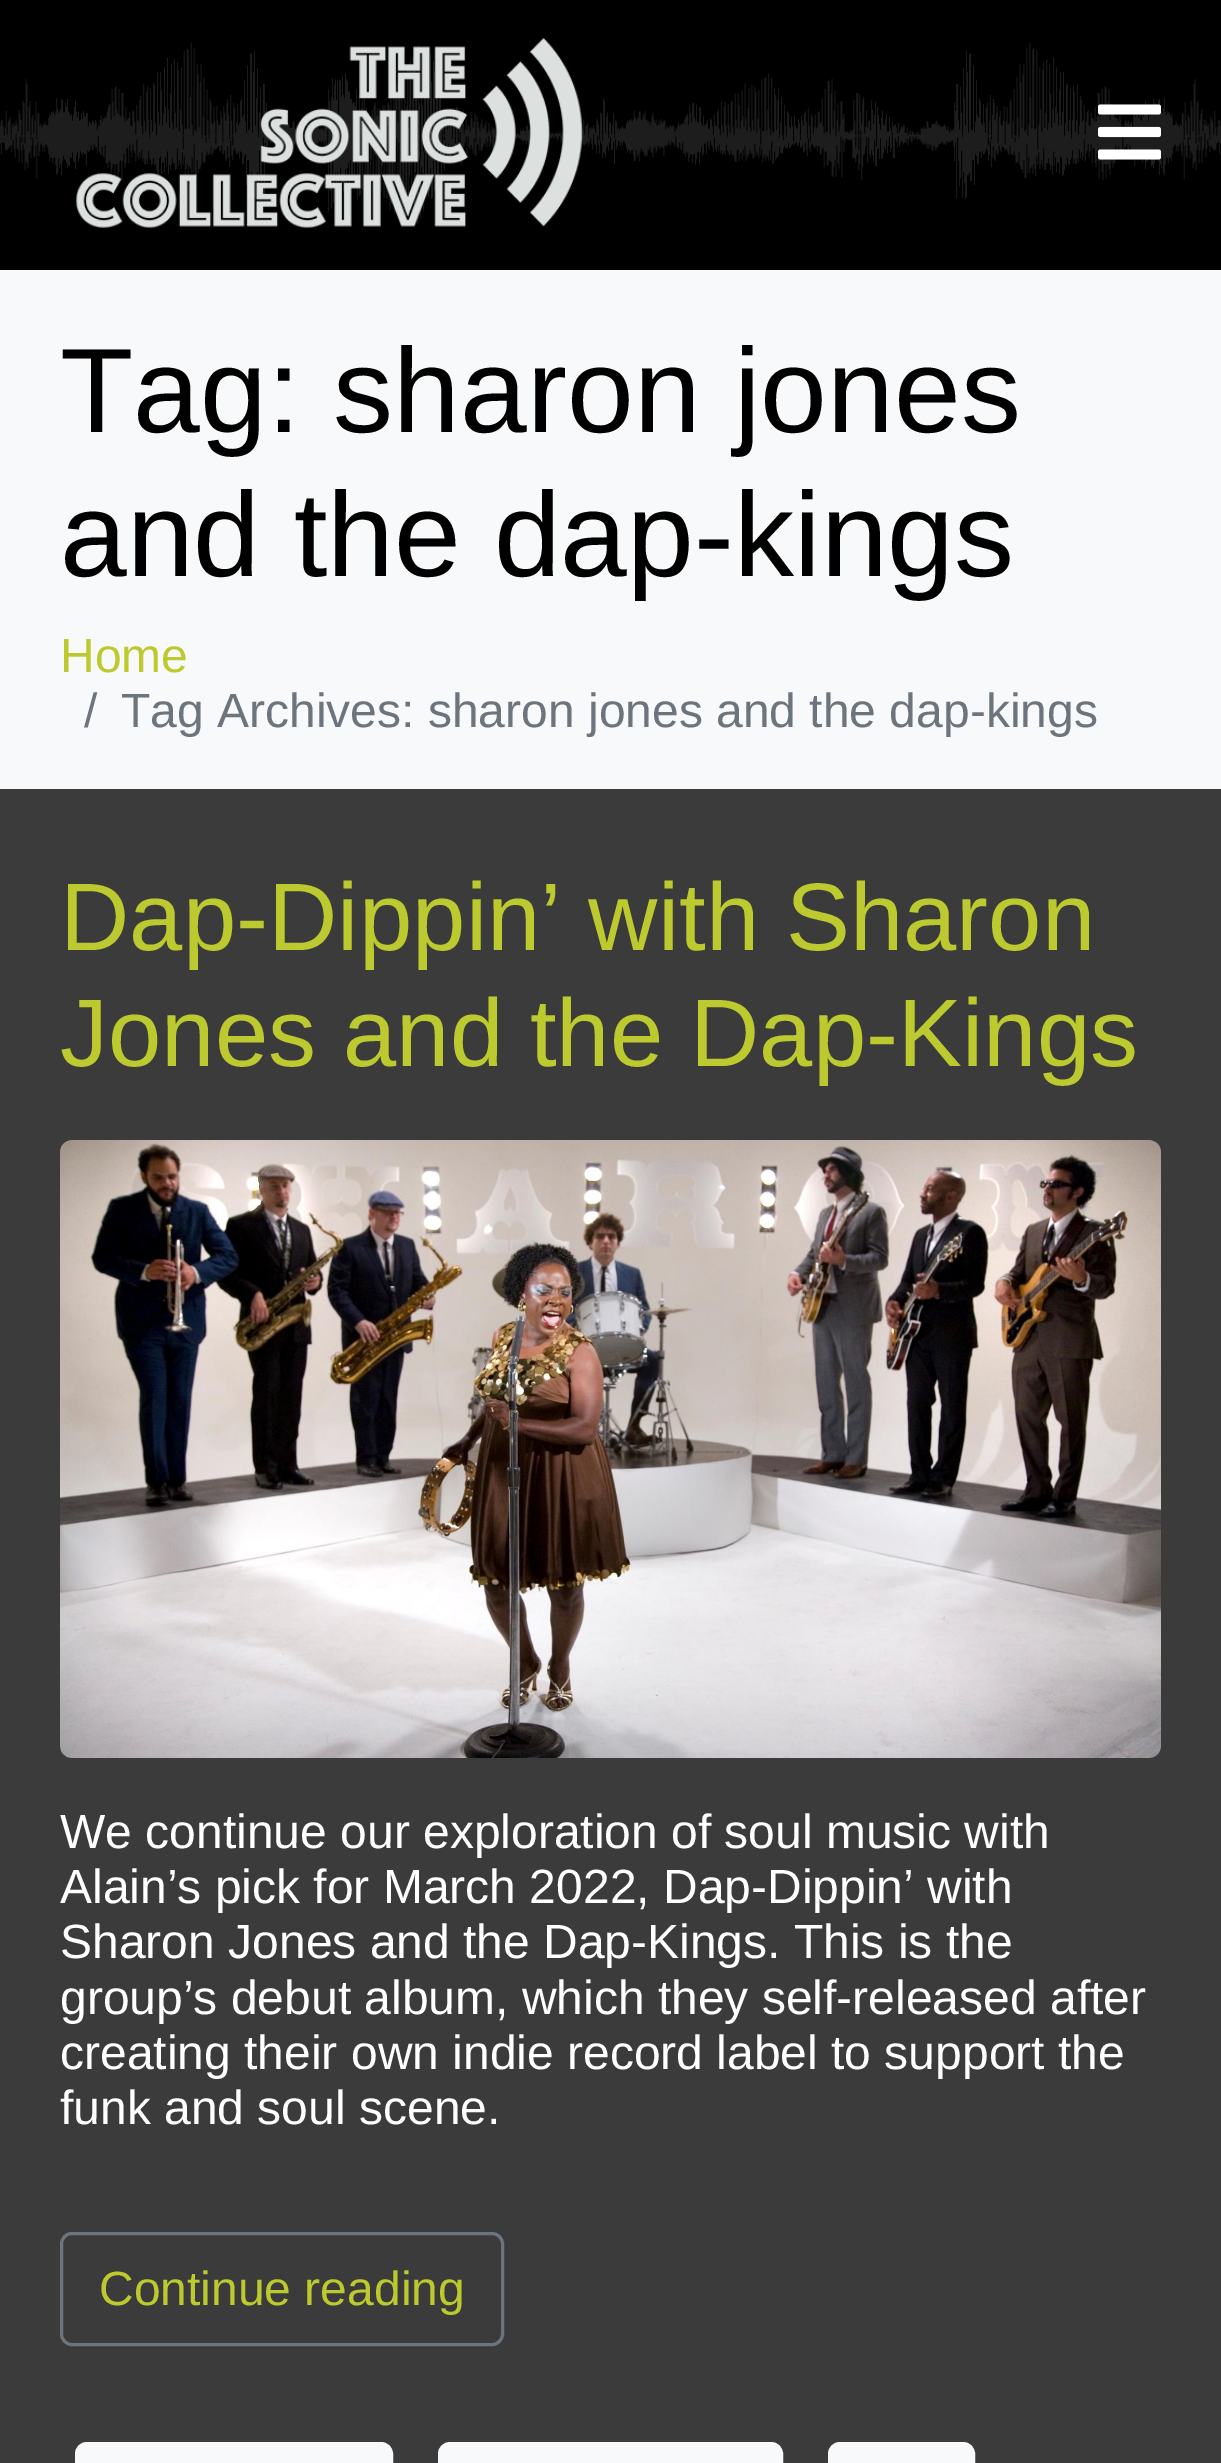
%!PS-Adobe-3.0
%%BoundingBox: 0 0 1221 2463
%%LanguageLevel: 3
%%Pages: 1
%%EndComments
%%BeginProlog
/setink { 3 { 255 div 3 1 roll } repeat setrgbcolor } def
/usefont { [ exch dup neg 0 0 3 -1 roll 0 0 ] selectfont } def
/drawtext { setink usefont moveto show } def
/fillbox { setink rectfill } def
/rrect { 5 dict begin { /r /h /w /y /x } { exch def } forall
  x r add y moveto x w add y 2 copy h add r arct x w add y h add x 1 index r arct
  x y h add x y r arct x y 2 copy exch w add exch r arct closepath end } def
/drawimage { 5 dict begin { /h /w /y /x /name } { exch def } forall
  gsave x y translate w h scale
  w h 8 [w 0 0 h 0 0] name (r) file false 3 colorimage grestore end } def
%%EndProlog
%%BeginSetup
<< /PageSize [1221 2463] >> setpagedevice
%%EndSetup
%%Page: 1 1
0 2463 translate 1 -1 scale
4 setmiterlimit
0 0 1221 2463 59 59 59 fillbox
0 0 1221 270 0 0 0 fillbox
(assets/img1.rgb) 0 42 1221 183 drawimage
(assets/img2.rgb) 76 37 507 191 drawimage
(assets/img3.rgb) 1098 104 63 56 drawimage
0 270 1221 519 248 249 250 fillbox
(Tag: sharon jones) 60 432 /LiberationSans-Regular 120 0 0 0 drawtext
(and the dap-kings) 60 576 /LiberationSans-Regular 120 0 0 0 drawtext
(Home) 60 672 /LiberationSans-Regular 48 189 202 47 drawtext
(/) 84 727 /LiberationSans-Regular 48 108 117 125 drawtext
(Tag Archives: sharon jones and the dap-kings) 121 727 /LiberationSans-Regular 48 108 117 125 drawtext
(Dap-Dippin’ with Sharon) 60 950 /LiberationSans-Regular 96 189 202 47 drawtext
(Jones and the Dap-Kings) 60 1066 /LiberationSans-Regular 96 189 202 47 drawtext
(assets/img4.rgb) 60 1140 1101 618 drawimage
(We continue our exploration of soul music with) 60 1848 /LiberationSans-Regular 48 255 255 255 drawtext
(Alain’s pick for March 2022, Dap-Dippin’ with) 60 1903 /LiberationSans-Regular 48 255 255 255 drawtext
(Sharon Jones and the Dap-Kings. This is the) 60 1958 /LiberationSans-Regular 48 255 255 255 drawtext
(group’s debut album, which they self-released after) 60 2014 /LiberationSans-Regular 48 255 255 255 drawtext
(creating their own indie record label to support the) 60 2069 /LiberationSans-Regular 48 255 255 255 drawtext
(funk and soul scene.) 60 2124 /LiberationSans-Regular 48 255 255 255 drawtext
108 117 125 setink
3 setlinewidth
61.5 2233.5 441 111 10.5 rrect stroke
(Continue reading) 99 2305 /LiberationSans-Regular 48 189 202 47 drawtext
248 249 250 setink
76.5 2443.5 315 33 10.5 rrect gsave fill grestore
stroke
439.5 2443.5 342 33 10.5 rrect gsave fill grestore
stroke
829.5 2443.5 144 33 10.5 rrect gsave fill grestore
stroke
showpage
%%EOF
